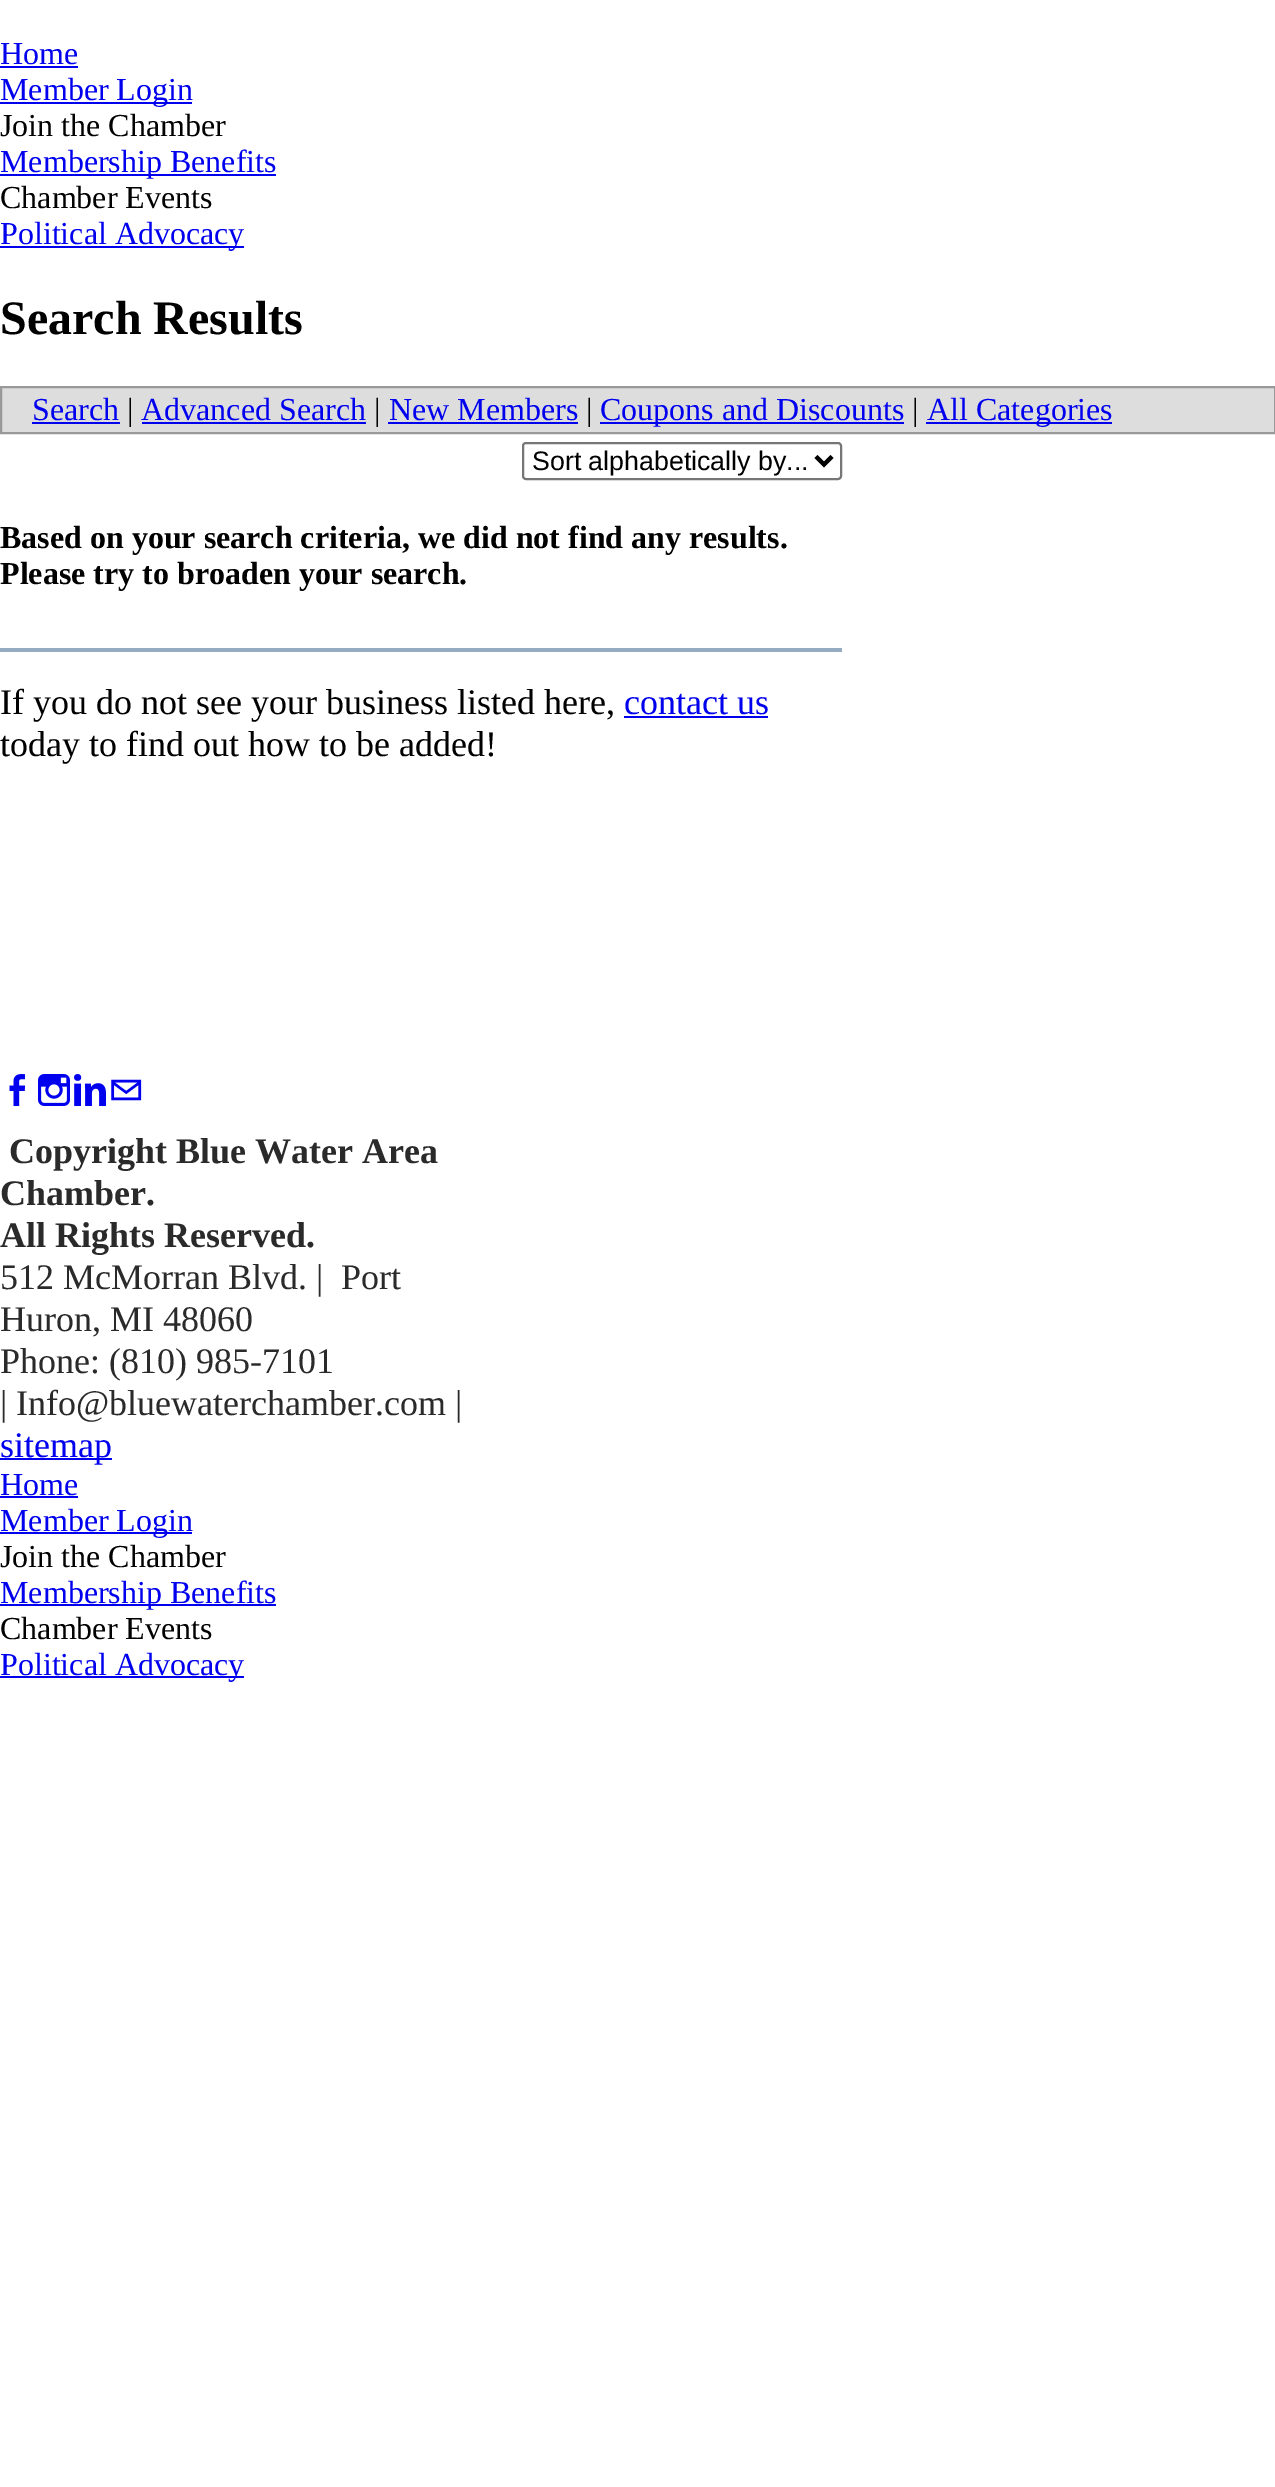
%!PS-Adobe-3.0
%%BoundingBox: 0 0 1275 2487
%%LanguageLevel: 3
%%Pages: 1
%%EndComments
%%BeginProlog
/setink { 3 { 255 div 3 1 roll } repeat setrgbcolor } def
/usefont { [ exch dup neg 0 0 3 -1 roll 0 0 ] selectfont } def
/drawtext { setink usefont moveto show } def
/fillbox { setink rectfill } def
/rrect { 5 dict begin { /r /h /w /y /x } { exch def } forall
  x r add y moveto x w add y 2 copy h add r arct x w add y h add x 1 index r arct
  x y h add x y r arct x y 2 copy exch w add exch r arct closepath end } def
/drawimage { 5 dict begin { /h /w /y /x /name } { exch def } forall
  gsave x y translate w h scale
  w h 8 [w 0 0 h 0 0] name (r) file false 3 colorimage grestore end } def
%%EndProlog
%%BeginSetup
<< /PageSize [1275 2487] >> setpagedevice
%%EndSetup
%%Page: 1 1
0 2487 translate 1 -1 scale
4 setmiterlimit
0 0 1275 2487 255 255 255 fillbox
(Home) 0 64 /LiberationSerif-Regular 32 0 0 238 drawtext
0 66 78 2 0 0 238 fillbox
0 102 192 2 0 0 238 fillbox
(Member Login) 0 100 /LiberationSerif-Regular 32 0 0 238 drawtext
(Join the Chamber) 0 136 /LiberationSerif-Regular 32 0 0 0 drawtext
0 174 276 2 0 0 238 fillbox
(Membership Benefits) 0 172 /LiberationSerif-Regular 32 0 0 238 drawtext
(Chamber Events) 0 208 /LiberationSerif-Regular 32 0 0 0 drawtext
0 246 244 2 0 0 238 fillbox
(Political Advocacy) 0 244 /LiberationSerif-Regular 32 0 0 238 drawtext
(Search Results) 0 334 /LiberationSerif-Bold 48 0 0 0 drawtext
221 221 221 setink
1 387 moveto 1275 387 lineto 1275 433 lineto 1 433 lineto closepath gsave fill grestore
153 153 153 setink
2 setlinewidth
stroke
(Search) 32 420 /LiberationSerif-Regular 32 0 0 238 drawtext
32 422 88 2 0 0 238 fillbox
(|) 127 420 /LiberationSerif-Regular 32 0 0 0 drawtext
(Advanced Search) 141 420 /LiberationSerif-Regular 32 0 0 238 drawtext
142 422 224 2 0 0 238 fillbox
(|) 374 420 /LiberationSerif-Regular 32 0 0 0 drawtext
(New Members) 389 420 /LiberationSerif-Regular 32 0 0 238 drawtext
388 422 190 2 0 0 238 fillbox
(|) 586 420 /LiberationSerif-Regular 32 0 0 0 drawtext
600 422 304 2 0 0 238 fillbox
(Coupons and Discounts) 600 420 /LiberationSerif-Regular 32 0 0 238 drawtext
(|) 912 420 /LiberationSerif-Regular 32 0 0 0 drawtext
926 422 186 2 0 0 238 fillbox
(All Categories) 927 420 /LiberationSerif-Regular 32 0 0 238 drawtext
118 118 118 setink
523 443 318 36 3 rrect stroke
0 0 0 setink
4 setlinewidth
816 456.5 moveto 824 464.5 lineto 832 456.5 lineto stroke
(Sort alphabetically by...) 532 470 /LiberationSans-Regular 26.75 0 0 0 drawtext
(Based on your search criteria, we did not find any results.) 0 548 /LiberationSerif-Bold 32 0 0 0 drawtext
(Please try to broaden your search.) 0 584 /LiberationSerif-Bold 32 0 0 0 drawtext
0 648 842 4 150 172 195 fillbox
(If you do not see your business listed here,) 0 714 /LiberationSerif-Regular 36 0 0 0 drawtext
(contact us) 624 714 /LiberationSerif-Regular 36 0 0 238 drawtext
624 716 144 2 0 0 238 fillbox
(today to find out how to be added!) 0 756 /LiberationSerif-Regular 36 0 0 0 drawtext
(assets/img1.rgb) 9 1074 17 32 drawimage
(assets/img2.rgb) 38 1074 32 32 drawimage
(assets/img3.rgb) 74 1074 32 32 drawimage
(assets/img4.rgb) 111 1079 31 22 drawimage
(Copyright Blue Water Area) 9 1163 /LiberationSerif-Bold 36 42 42 42 drawtext
(Chamber.) 0 1205 /LiberationSerif-Bold 36 42 42 42 drawtext
(All Rights Reserved.) 0 1247 /LiberationSerif-Bold 36 42 42 42 drawtext
(512 McMorran Blvd. |  Port) 0 1289 /LiberationSerif-Regular 36 42 42 42 drawtext
(Huron, MI 48060) 0 1331 /LiberationSerif-Regular 36 42 42 42 drawtext
(Phone: \(810\) 985-7101) 0 1373 /LiberationSerif-Regular 36 42 42 42 drawtext
(| Info@bluewaterchamber.com |) 0 1415 /LiberationSerif-Regular 36 42 42 42 drawtext
0 1458 112 2 0 0 238 fillbox
(sitemap) 0 1457 /LiberationSerif-Regular 36 0 0 238 drawtext
(Home) 0 1495 /LiberationSerif-Regular 32 0 0 238 drawtext
0 1496 78 2 0 0 238 fillbox
0 1532 192 2 0 0 238 fillbox
(Member Login) 0 1531 /LiberationSerif-Regular 32 0 0 238 drawtext
(Join the Chamber) 0 1567 /LiberationSerif-Regular 32 0 0 0 drawtext
0 1604 276 2 0 0 238 fillbox
(Membership Benefits) 0 1603 /LiberationSerif-Regular 32 0 0 238 drawtext
(Chamber Events) 0 1639 /LiberationSerif-Regular 32 0 0 0 drawtext
0 1676 244 2 0 0 238 fillbox
(Political Advocacy) 0 1675 /LiberationSerif-Regular 32 0 0 238 drawtext
showpage
%%EOF
